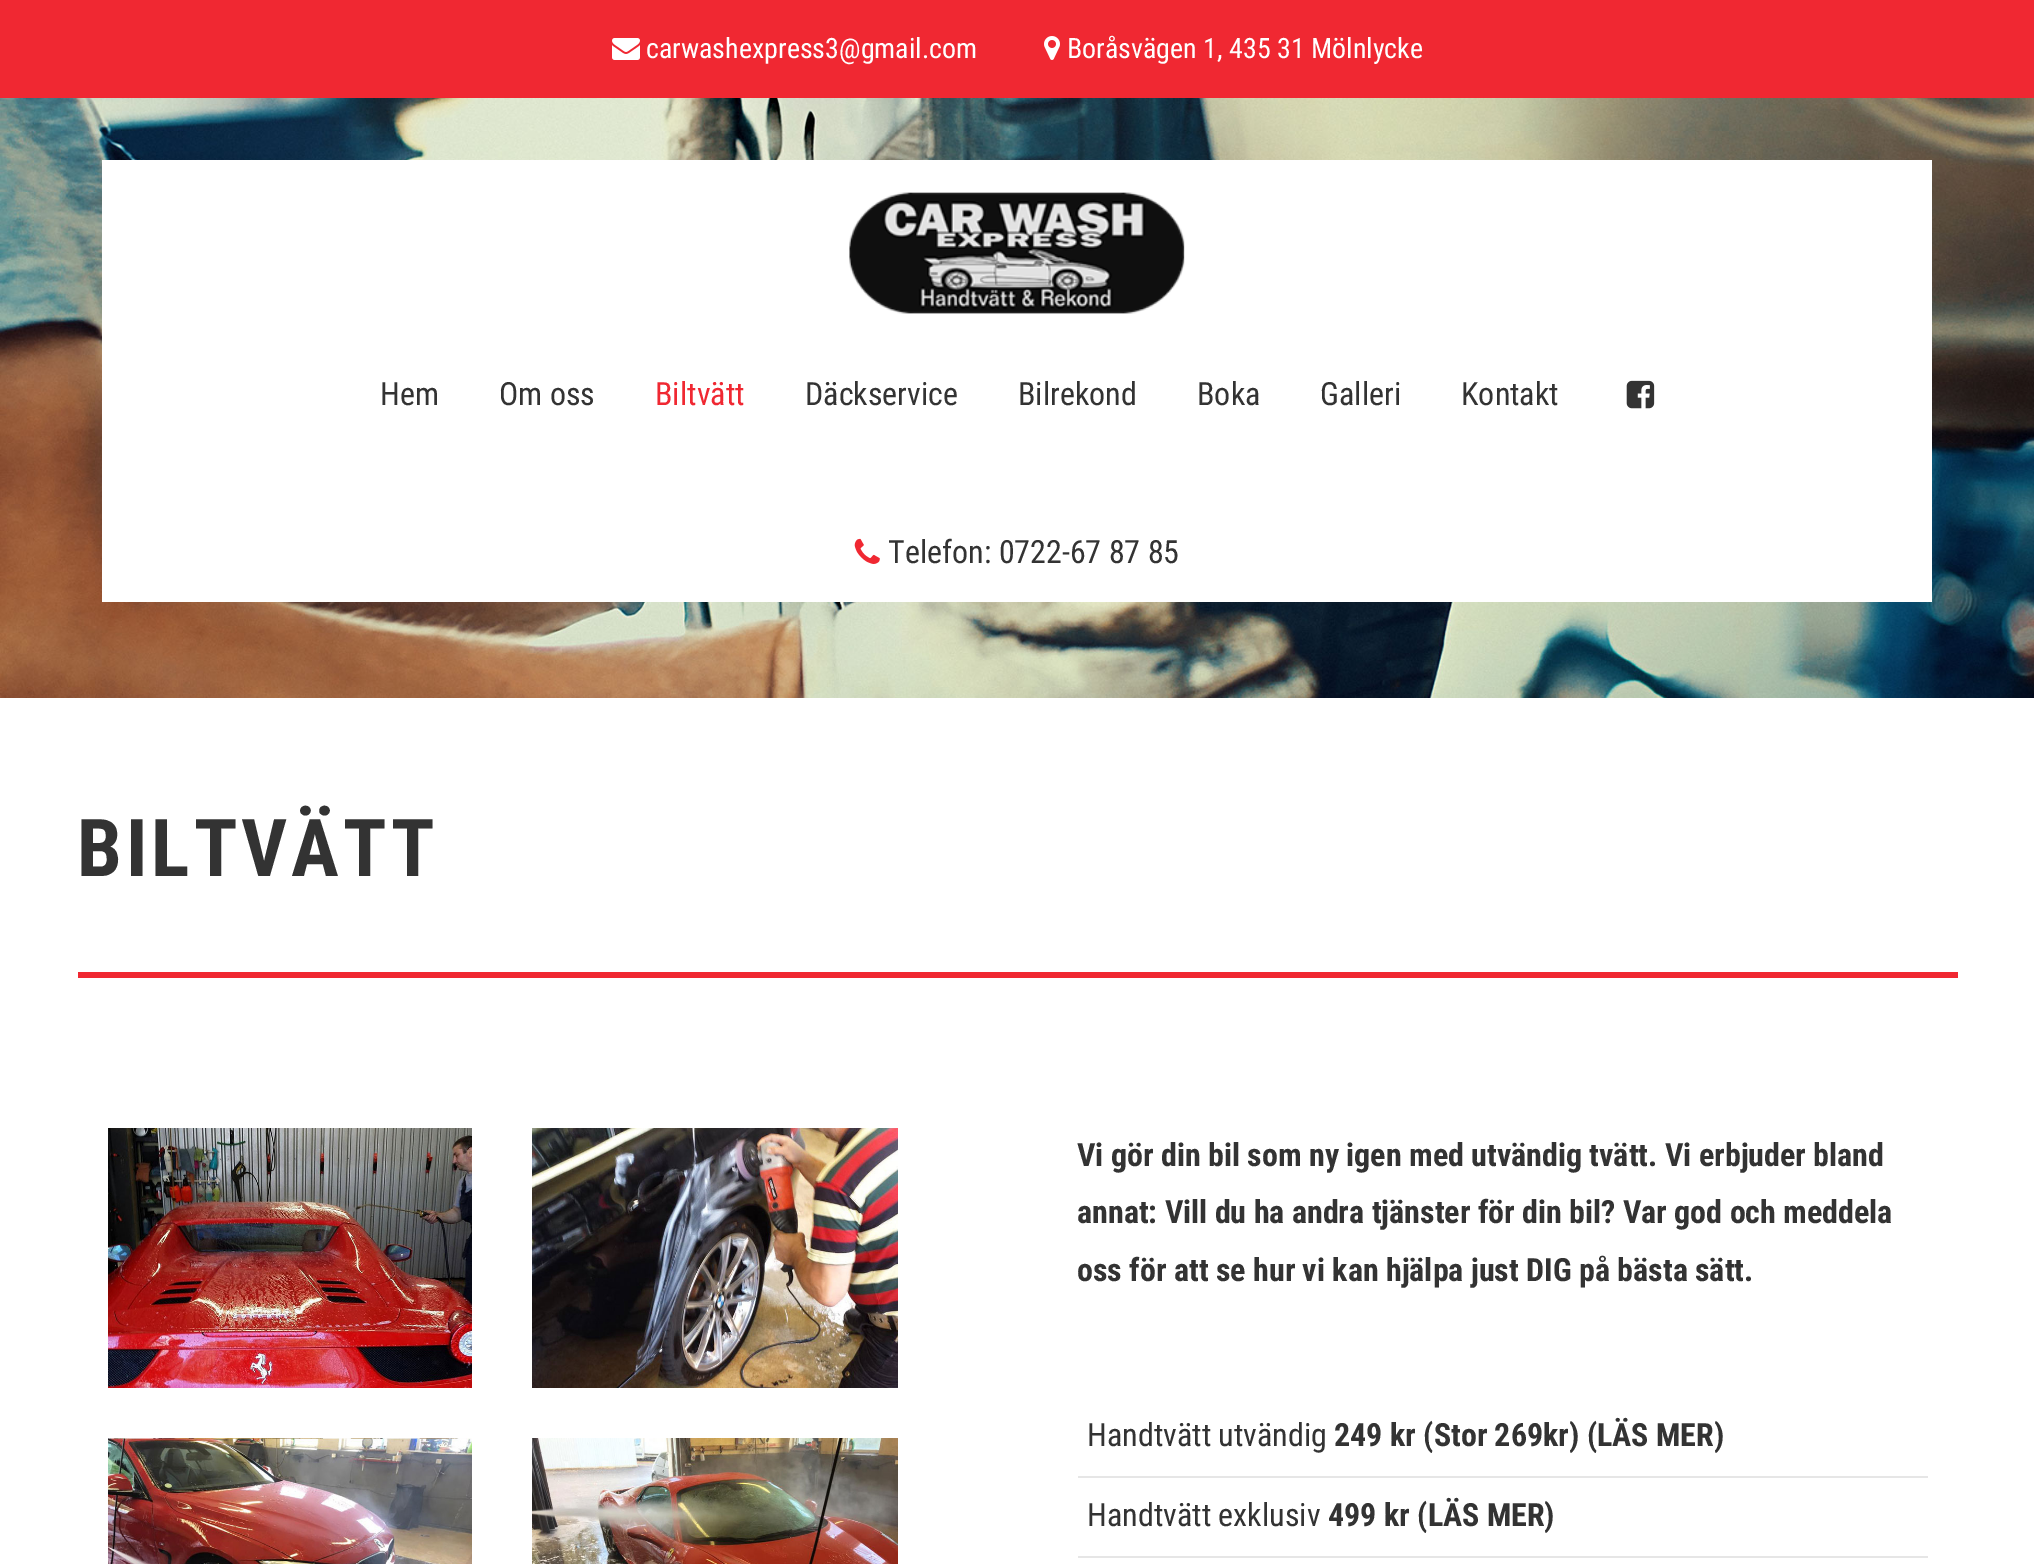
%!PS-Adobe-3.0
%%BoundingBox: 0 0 2034 1564
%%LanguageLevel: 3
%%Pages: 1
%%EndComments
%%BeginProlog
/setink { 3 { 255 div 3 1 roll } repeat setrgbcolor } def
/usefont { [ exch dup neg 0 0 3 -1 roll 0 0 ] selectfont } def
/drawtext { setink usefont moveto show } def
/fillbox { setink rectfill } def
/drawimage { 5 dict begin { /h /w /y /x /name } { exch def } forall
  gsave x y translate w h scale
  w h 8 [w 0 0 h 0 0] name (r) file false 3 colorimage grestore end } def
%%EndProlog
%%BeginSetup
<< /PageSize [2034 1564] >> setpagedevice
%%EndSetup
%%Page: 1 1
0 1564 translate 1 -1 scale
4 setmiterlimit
0 0 2034 1564 255 255 255 fillbox
0 0 2034 98 240 40 50 fillbox
(assets/img1.rgb) 612 38 28 22 drawimage
(carwashexpress3@gmail.com) 646 58 /RobotoCondensed-Regular 28 255 255 255 drawtext
(assets/img2.rgb) 1044 36 16 24 drawimage
(Boråsvägen 1, 435 31 Mölnlycke) 1067 58 /RobotoCondensed-Regular 28 255 255 255 drawtext
(assets/img3.rgb) 0 98 2034 600 drawimage
102 160 1830 442 255 255 255 fillbox
(assets/img4.rgb) 849 192 336 122 drawimage
(Hem) 380 405 /RobotoCondensed-Regular 32 51 51 51 drawtext
(Om oss) 499 405 /RobotoCondensed-Regular 32 51 51 51 drawtext
(Biltvätt) 655 405 /RobotoCondensed-Regular 32 240 40 50 drawtext
(Däckservice) 805 405 /RobotoCondensed-Regular 32 51 51 51 drawtext
(Bilrekond) 1018 405 /RobotoCondensed-Regular 32 51 51 51 drawtext
(Boka) 1197 405 /RobotoCondensed-Regular 32 51 51 51 drawtext
(Galleri) 1320 405 /RobotoCondensed-Regular 32 51 51 51 drawtext
(Kontakt) 1461 405 /RobotoCondensed-Regular 32 51 51 51 drawtext
(assets/img5.rgb) 1626 380 29 29 drawimage
(assets/img6.rgb) 854 538 26 26 drawimage
(Telefon: 0722-67 87 85) 888 563 /RobotoCondensed-Regular 32 51 51 51 drawtext
/RobotoCondensed-Bold 80 usefont
77 876 moveto 4 0 (BILTVÄTT) ashow
78 972 1880 6 240 40 50 fillbox
(assets/img7.rgb) 108 1128 364 260 drawimage
(assets/img8.rgb) 532 1128 366 260 drawimage
(assets/img9.rgb) 108 1438 364 126 drawimage
(assets/img10.rgb) 532 1438 366 126 drawimage
(Vi gör din bil som ny igen med utvändig tvätt. Vi erbjuder bland) 1077 1166 /RobotoCondensed-Bold 32 51 51 51 drawtext
(annat: Vill du ha andra tjänster för din bil? Var god och meddela) 1077 1223 /RobotoCondensed-Bold 32 51 51 51 drawtext
(oss för att se hur vi kan hjälpa just DIG på bästa sätt.) 1077 1281 /RobotoCondensed-Bold 32 51 51 51 drawtext
1078 1476 850 2 230 230 230 fillbox
(Handtvätt utvändig) 1087 1446 /RobotoCondensed-Regular 32 51 51 51 drawtext
(249 kr \(Stor 269kr\) \(LÄS MER\)) 1334 1446 /RobotoCondensed-Bold 32 51 51 51 drawtext
1078 1556 850 2 230 230 230 fillbox
(Handtvätt exklusiv) 1087 1526 /RobotoCondensed-Regular 32 51 51 51 drawtext
(499 kr \(LÄS MER\)) 1328 1526 /RobotoCondensed-Bold 32 51 51 51 drawtext
showpage
%%EOF
